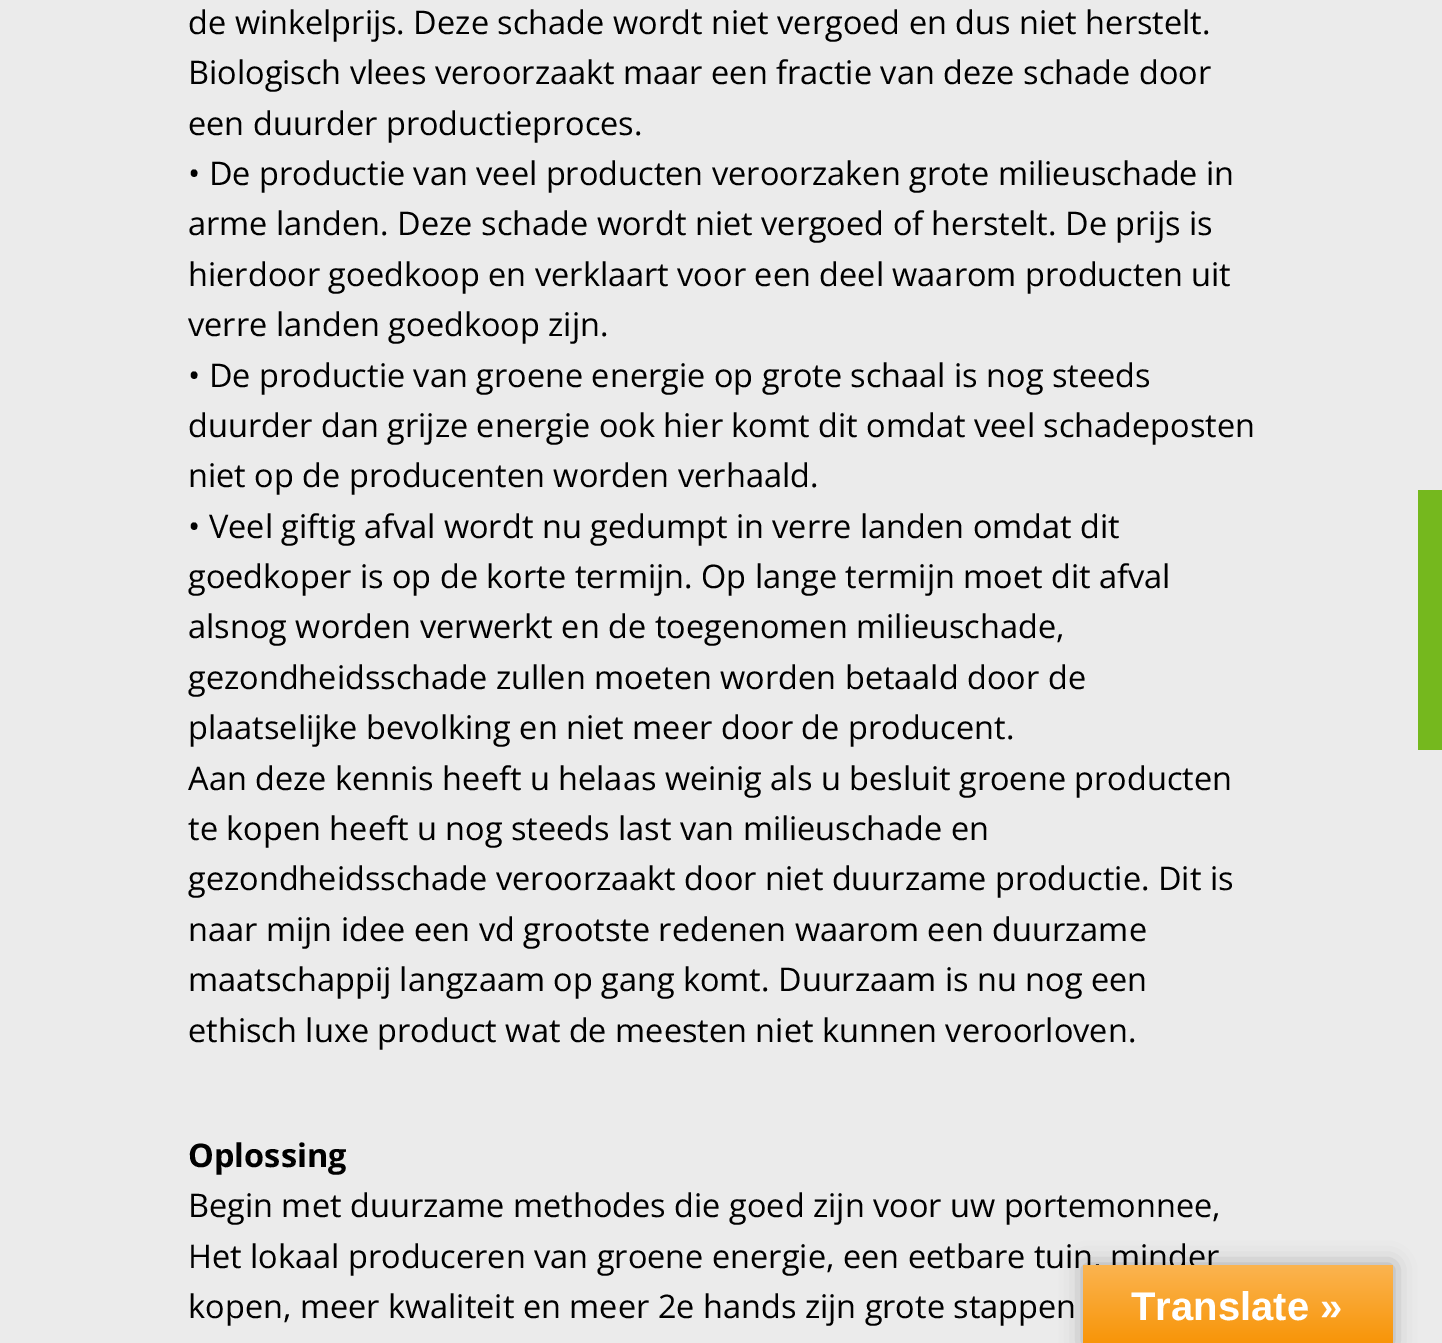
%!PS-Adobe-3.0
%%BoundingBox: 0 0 1442 1343
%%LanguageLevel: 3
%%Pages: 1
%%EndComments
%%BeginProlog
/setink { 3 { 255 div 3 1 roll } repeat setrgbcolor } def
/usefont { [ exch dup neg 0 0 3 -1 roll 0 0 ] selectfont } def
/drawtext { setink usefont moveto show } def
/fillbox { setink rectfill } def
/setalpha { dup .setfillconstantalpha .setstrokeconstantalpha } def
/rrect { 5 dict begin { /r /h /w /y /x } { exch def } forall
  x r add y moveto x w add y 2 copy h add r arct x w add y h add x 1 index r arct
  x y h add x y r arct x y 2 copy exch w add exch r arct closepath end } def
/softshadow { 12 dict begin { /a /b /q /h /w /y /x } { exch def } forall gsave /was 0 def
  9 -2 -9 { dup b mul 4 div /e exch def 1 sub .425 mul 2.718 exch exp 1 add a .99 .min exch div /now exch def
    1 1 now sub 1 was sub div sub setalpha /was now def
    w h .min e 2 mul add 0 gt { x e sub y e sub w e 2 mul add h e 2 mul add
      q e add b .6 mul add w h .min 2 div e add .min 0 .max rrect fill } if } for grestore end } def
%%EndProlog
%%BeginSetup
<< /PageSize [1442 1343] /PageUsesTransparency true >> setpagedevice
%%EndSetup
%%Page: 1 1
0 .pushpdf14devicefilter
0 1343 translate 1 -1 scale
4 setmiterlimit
0 0 1442 1343 235 235 235 fillbox
(de winkelprijs. Deze schade wordt niet vergoed en dus niet herstelt.) 188 34 /OpenSans-Regular 32.5 0 0 0 drawtext
(Biologisch vlees veroorzaakt maar een fractie van deze schade door) 188 84 /OpenSans-Regular 32.5 0 0 0 drawtext
(een duurder productieproces.) 188 135 /OpenSans-Regular 32.5 0 0 0 drawtext
(• De productie van veel producten veroorzaken grote milieuschade in) 188 185 /OpenSans-Regular 32.5 0 0 0 drawtext
(arme landen. Deze schade wordt niet vergoed of herstelt. De prijs is) 188 235 /OpenSans-Regular 32.5 0 0 0 drawtext
(hierdoor goedkoop en verklaart voor een deel waarom producten uit) 188 286 /OpenSans-Regular 32.5 0 0 0 drawtext
(verre landen goedkoop zijn.) 188 336 /OpenSans-Regular 32.5 0 0 0 drawtext
(• De productie van groene energie op grote schaal is nog steeds) 188 387 /OpenSans-Regular 32.5 0 0 0 drawtext
(duurder dan grijze energie ook hier komt dit omdat veel schadeposten) 188 437 /OpenSans-Regular 32.5 0 0 0 drawtext
(niet op de producenten worden verhaald.) 188 487 /OpenSans-Regular 32.5 0 0 0 drawtext
(• Veel giftig afval wordt nu gedumpt in verre landen omdat dit) 188 538 /OpenSans-Regular 32.5 0 0 0 drawtext
(goedkoper is op de korte termijn. Op lange termijn moet dit afval) 188 588 /OpenSans-Regular 32.5 0 0 0 drawtext
(alsnog worden verwerkt en de toegenomen milieuschade,) 188 638 /OpenSans-Regular 32.5 0 0 0 drawtext
(gezondheidsschade zullen moeten worden betaald door de) 188 689 /OpenSans-Regular 32.5 0 0 0 drawtext
(plaatselijke bevolking en niet meer door de producent.) 188 739 /OpenSans-Regular 32.5 0 0 0 drawtext
(Aan deze kennis heeft u helaas weinig als u besluit groene producten) 188 790 /OpenSans-Regular 32.5 0 0 0 drawtext
(te kopen heeft u nog steeds last van milieuschade en) 188 840 /OpenSans-Regular 32.5 0 0 0 drawtext
(gezondheidsschade veroorzaakt door niet duurzame productie. Dit is) 188 890 /OpenSans-Regular 32.5 0 0 0 drawtext
(naar mijn idee een vd grootste redenen waarom een duurzame) 188 941 /OpenSans-Regular 32.5 0 0 0 drawtext
(maatschappij langzaam op gang komt. Duurzaam is nu nog een) 188 991 /OpenSans-Regular 32.5 0 0 0 drawtext
(ethisch luxe product wat de meesten niet kunnen veroorloven.) 188 1042 /OpenSans-Regular 32.5 0 0 0 drawtext
(Oplossing) 188 1167 /OpenSans-Bold 32.5 0 0 0 drawtext
(Begin met duurzame methodes die goed zijn voor uw portemonnee,) 188 1217 /OpenSans-Regular 32.5 0 0 0 drawtext
(Het lokaal produceren van groene energie, een eetbare tuin, minder) 188 1268 /OpenSans-Regular 32.5 0 0 0 drawtext
(kopen, meer kwaliteit en meer 2e hands zijn grote stappen) 188 1318 /OpenSans-Regular 32.5 0 0 0 drawtext
1418 490 24 260 117 184 30 fillbox
0 0 0 setink
1083 1265 310 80 0 11 0.3 softshadow
gsave 1083 1265 moveto 1393 1265 lineto 1393 1343 lineto 1083 1343 lineto closepath clip newpath
<< /ShadingType 2 /ColorSpace /DeviceRGB /Coords [1238 1265 1238 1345] /Extend [true true] /Function << /FunctionType 2 /Domain [0 1] /C0 [0.984 0.706 0.314] /C1 [0.973 0.58 0.024] /N 1 >> >> shfill grestore
(Translate ») 1131 1320 /LiberationSans-Bold 40 255 255 255 drawtext
.poppdf14devicefilter showpage
%%EOF
